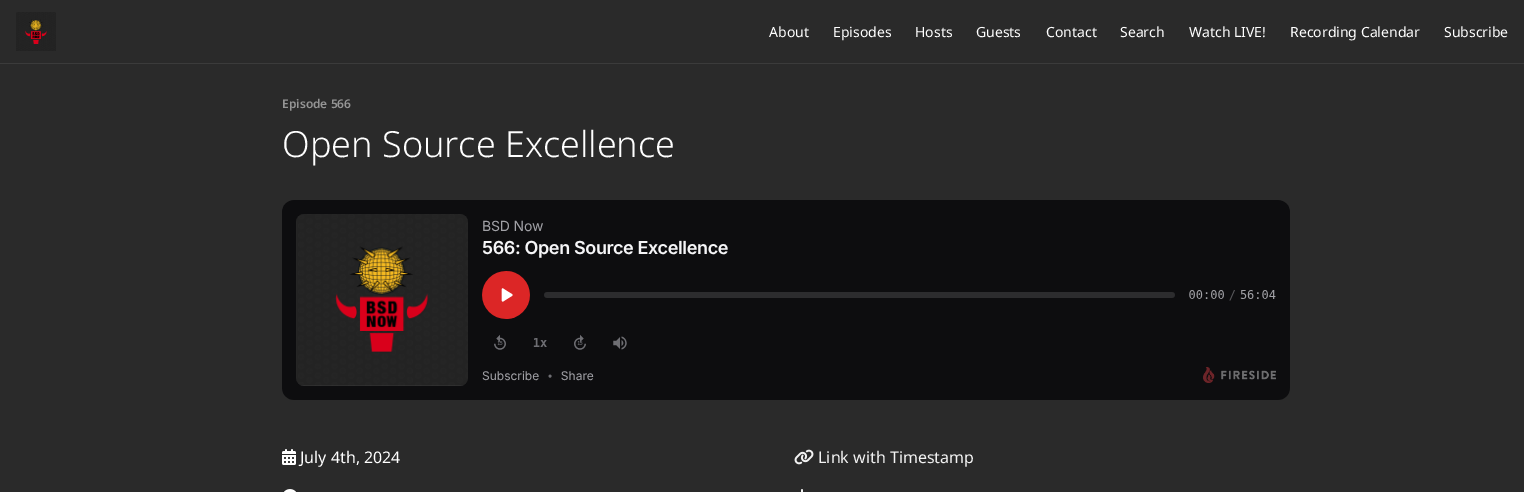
%!PS-Adobe-3.0
%%BoundingBox: 0 0 1524 492
%%LanguageLevel: 3
%%Pages: 1
%%EndComments
%%BeginProlog
/setink { 3 { 255 div 3 1 roll } repeat setrgbcolor } def
/usefont { [ exch dup neg 0 0 3 -1 roll 0 0 ] selectfont } def
/drawtext { setink usefont moveto show } def
/fillbox { setink rectfill } def
/drawimage { 5 dict begin { /h /w /y /x /name } { exch def } forall
  gsave x y translate w h scale
  w h 8 [w 0 0 h 0 0] name (r) file false 3 colorimage grestore end } def
%%EndProlog
%%BeginSetup
<< /PageSize [1524 492] >> setpagedevice
%%EndSetup
%%Page: 1 1
0 492 translate 1 -1 scale
4 setmiterlimit
0 0 1524 492 42 42 42 fillbox
0 63 1524 1 59 59 59 fillbox
(assets/img1.rgb) 16 12 40 39 drawimage
(About) 769 37 /NotoSans-Regular 14 255 255 255 drawtext
(Episodes) 833 37 /NotoSans-Regular 14 255 255 255 drawtext
(Hosts) 915 37 /NotoSans-Regular 14 255 255 255 drawtext
(Guests) 976 37 /NotoSans-Regular 14 255 255 255 drawtext
(Contact) 1046 37 /NotoSans-Regular 14 255 255 255 drawtext
(Search) 1120 37 /NotoSans-Regular 14 255 255 255 drawtext
(Watch LIVE!) 1189 37 /NotoSans-Regular 14 255 255 255 drawtext
(Recording Calendar) 1290 37 /NotoSans-Regular 14 255 255 255 drawtext
(Subscribe) 1444 37 /NotoSans-Regular 14 255 255 255 drawtext
(Episode 566) 282 108 /NotoSans-SemiBold 12 149 149 149 drawtext
(Open Source Excellence) 282 157 /NotoSans-Light 36 255 255 255 drawtext
(assets/img2.rgb) 282 200 1008 200 drawimage
(assets/img3.rgb) 282 449 14 16 drawimage
(July 4th, 2024) 300 463 /NotoSans-Regular 16 255 255 255 drawtext
(assets/img4.rgb) 284 489 12 3 drawimage
(assets/img5.rgb) 794 449 20 16 drawimage
(Link with Timestamp) 818 463 /NotoSans-Regular 16 242 242 242 drawtext
(assets/img6.rgb) 801 489 2 3 drawimage
showpage
%%EOF
